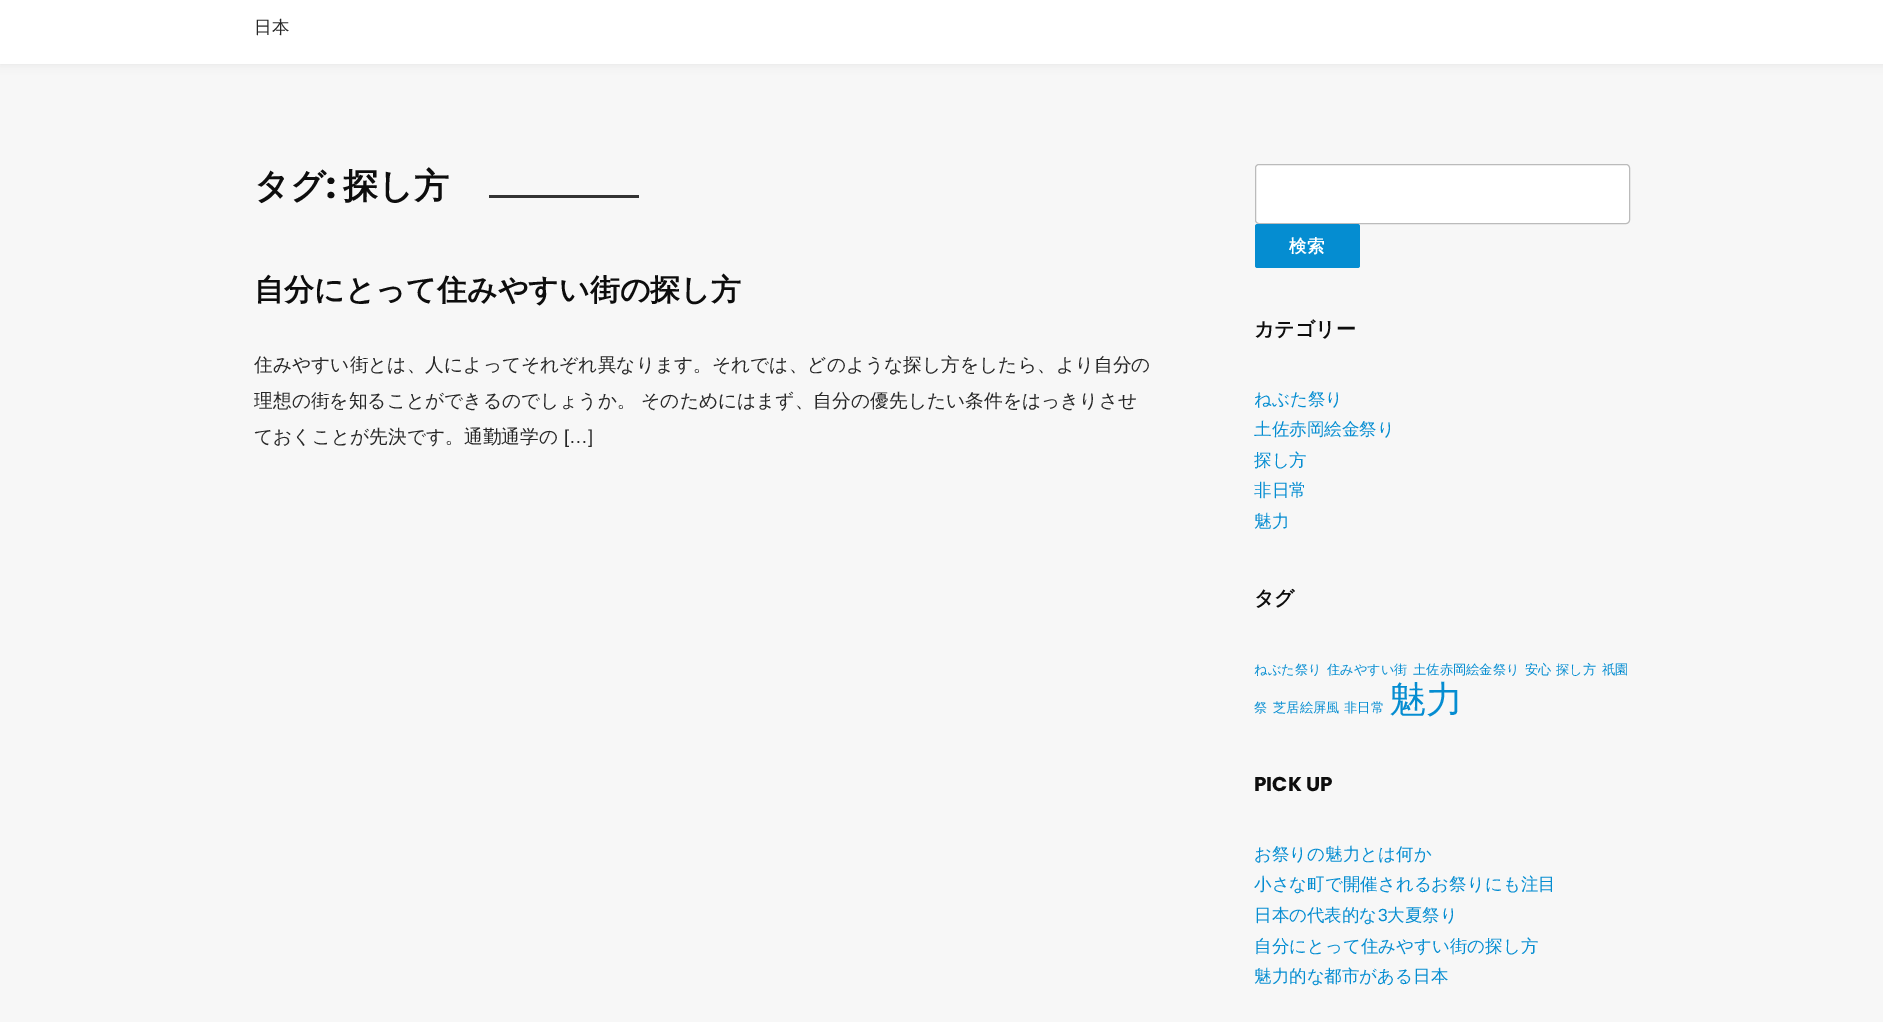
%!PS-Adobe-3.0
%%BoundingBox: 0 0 1883 1022
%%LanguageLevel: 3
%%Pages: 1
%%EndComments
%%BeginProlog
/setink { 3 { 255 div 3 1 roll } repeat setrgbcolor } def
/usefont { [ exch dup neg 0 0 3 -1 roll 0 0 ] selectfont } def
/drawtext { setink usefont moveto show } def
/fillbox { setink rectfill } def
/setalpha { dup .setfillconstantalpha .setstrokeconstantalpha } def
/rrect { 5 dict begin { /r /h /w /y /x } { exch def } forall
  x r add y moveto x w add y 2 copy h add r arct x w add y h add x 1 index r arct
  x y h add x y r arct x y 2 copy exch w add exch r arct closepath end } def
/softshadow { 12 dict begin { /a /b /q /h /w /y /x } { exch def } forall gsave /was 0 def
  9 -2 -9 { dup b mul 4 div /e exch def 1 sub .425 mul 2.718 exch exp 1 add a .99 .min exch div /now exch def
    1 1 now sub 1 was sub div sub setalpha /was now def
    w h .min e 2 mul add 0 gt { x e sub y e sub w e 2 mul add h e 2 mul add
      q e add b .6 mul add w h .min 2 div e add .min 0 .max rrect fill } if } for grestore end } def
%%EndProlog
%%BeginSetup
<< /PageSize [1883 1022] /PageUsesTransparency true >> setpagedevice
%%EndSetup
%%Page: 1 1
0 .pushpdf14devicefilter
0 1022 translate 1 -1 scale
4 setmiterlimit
0 0 1883 1022 247 247 247 fillbox
0 0 0 setink
0 -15 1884 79 0 5 0.07 softshadow
0 0 1883 64 255 255 255 fillbox
(日本) 254 33 /WenQuanYiZenHei-Medium 17.5 39 39 39 drawtext
(タグ) 254 198 /WenQuanYiZenHei-Bold 35 13 13 13 drawtext
(:) 326 198 /Poppins-Bold 35 13 13 13 drawtext
(探し方) 343 198 /WenQuanYiZenHei-Bold 35 13 13 13 drawtext
489 195 150 3 51 51 51 fillbox
(自分にとって住みやすい街の探し方) 254 300 /WenQuanYiZenHei-Bold 30 13 13 13 drawtext
(住みやすい街とは、人によってそれぞれ異なります。それでは、どのような探し方をしたら、より自分の) 254 371 /WenQuanYiZenHei-Medium 18.75 39 39 39 drawtext
(理想の街を知ることができるのでしょうか。 そのためにはまず、自分の優先したい条件をはっきりさせ) 254 407 /WenQuanYiZenHei-Medium 18.75 39 39 39 drawtext
(ておくことが先決です。通勤通学の) 254 443 /WenQuanYiZenHei-Medium 18.75 39 39 39 drawtext
([…]) 564 443 /LiberationSans-Regular 18.75 39 39 39 drawtext
255 255 255 setink
1255.5 164.5 374 59 3.5 rrect gsave fill grestore
187 187 187 setink
stroke
5 141 209 setink
1255 224 105 44 2.5 rrect fill
(検索) 1289 252 /WenQuanYiZenHei-Bold 17.5 255 255 255 drawtext
(カテゴリー) 1254 336 /WenQuanYiZenHei-Bold 20 13 13 13 drawtext
(ねぶた祭り) 1254 405 /WenQuanYiZenHei-Medium 17.5 5 141 209 drawtext
(土佐赤岡絵金祭り) 1254 435 /WenQuanYiZenHei-Medium 17.5 5 141 209 drawtext
(探し方) 1254 466 /WenQuanYiZenHei-Medium 17.5 5 141 209 drawtext
(非日常) 1254 496 /WenQuanYiZenHei-Medium 17.5 5 141 209 drawtext
(魅力) 1254 527 /WenQuanYiZenHei-Medium 17.5 5 141 209 drawtext
(タグ) 1254 605 /WenQuanYiZenHei-Bold 20 13 13 13 drawtext
(ねぶた祭り) 1254 674 /WenQuanYiZenHei-Medium 13.25 5 141 209 drawtext
(住みやすい街) 1327 674 /WenQuanYiZenHei-Medium 13.25 5 141 209 drawtext
(土佐赤岡絵金祭り) 1413 674 /WenQuanYiZenHei-Medium 13.25 5 141 209 drawtext
(安心) 1525 674 /WenQuanYiZenHei-Medium 13.25 5 141 209 drawtext
(探し方) 1556 674 /WenQuanYiZenHei-Medium 13.25 5 141 209 drawtext
(祇園) 1602 674 /WenQuanYiZenHei-Medium 13.25 5 141 209 drawtext
(祭) 1254 712 /WenQuanYiZenHei-Medium 13.25 5 141 209 drawtext
(芝居絵屏風) 1273 712 /WenQuanYiZenHei-Medium 13.25 5 141 209 drawtext
(非日常) 1344 712 /WenQuanYiZenHei-Medium 13.25 5 141 209 drawtext
(魅力) 1389 712 /WenQuanYiZenHei-Medium 37 5 141 209 drawtext
(PICK UP) 1254 791 /Poppins-Bold 20 13 13 13 drawtext
(お祭りの魅力とは何か) 1254 860 /WenQuanYiZenHei-Medium 17.5 5 141 209 drawtext
(小さな町で開催されるお祭りにも注目) 1254 890 /WenQuanYiZenHei-Medium 17.5 5 141 209 drawtext
(日本の代表的な) 1254 921 /WenQuanYiZenHei-Medium 17.5 5 141 209 drawtext
(3) 1378 921 /LiberationSans-Regular 17.5 5 141 209 drawtext
(大夏祭り) 1387 921 /WenQuanYiZenHei-Medium 17.5 5 141 209 drawtext
(自分にとって住みやすい街の探し方) 1254 952 /WenQuanYiZenHei-Medium 17.5 5 141 209 drawtext
(魅力的な都市がある日本) 1254 982 /WenQuanYiZenHei-Medium 17.5 5 141 209 drawtext
.poppdf14devicefilter showpage
%%EOF
